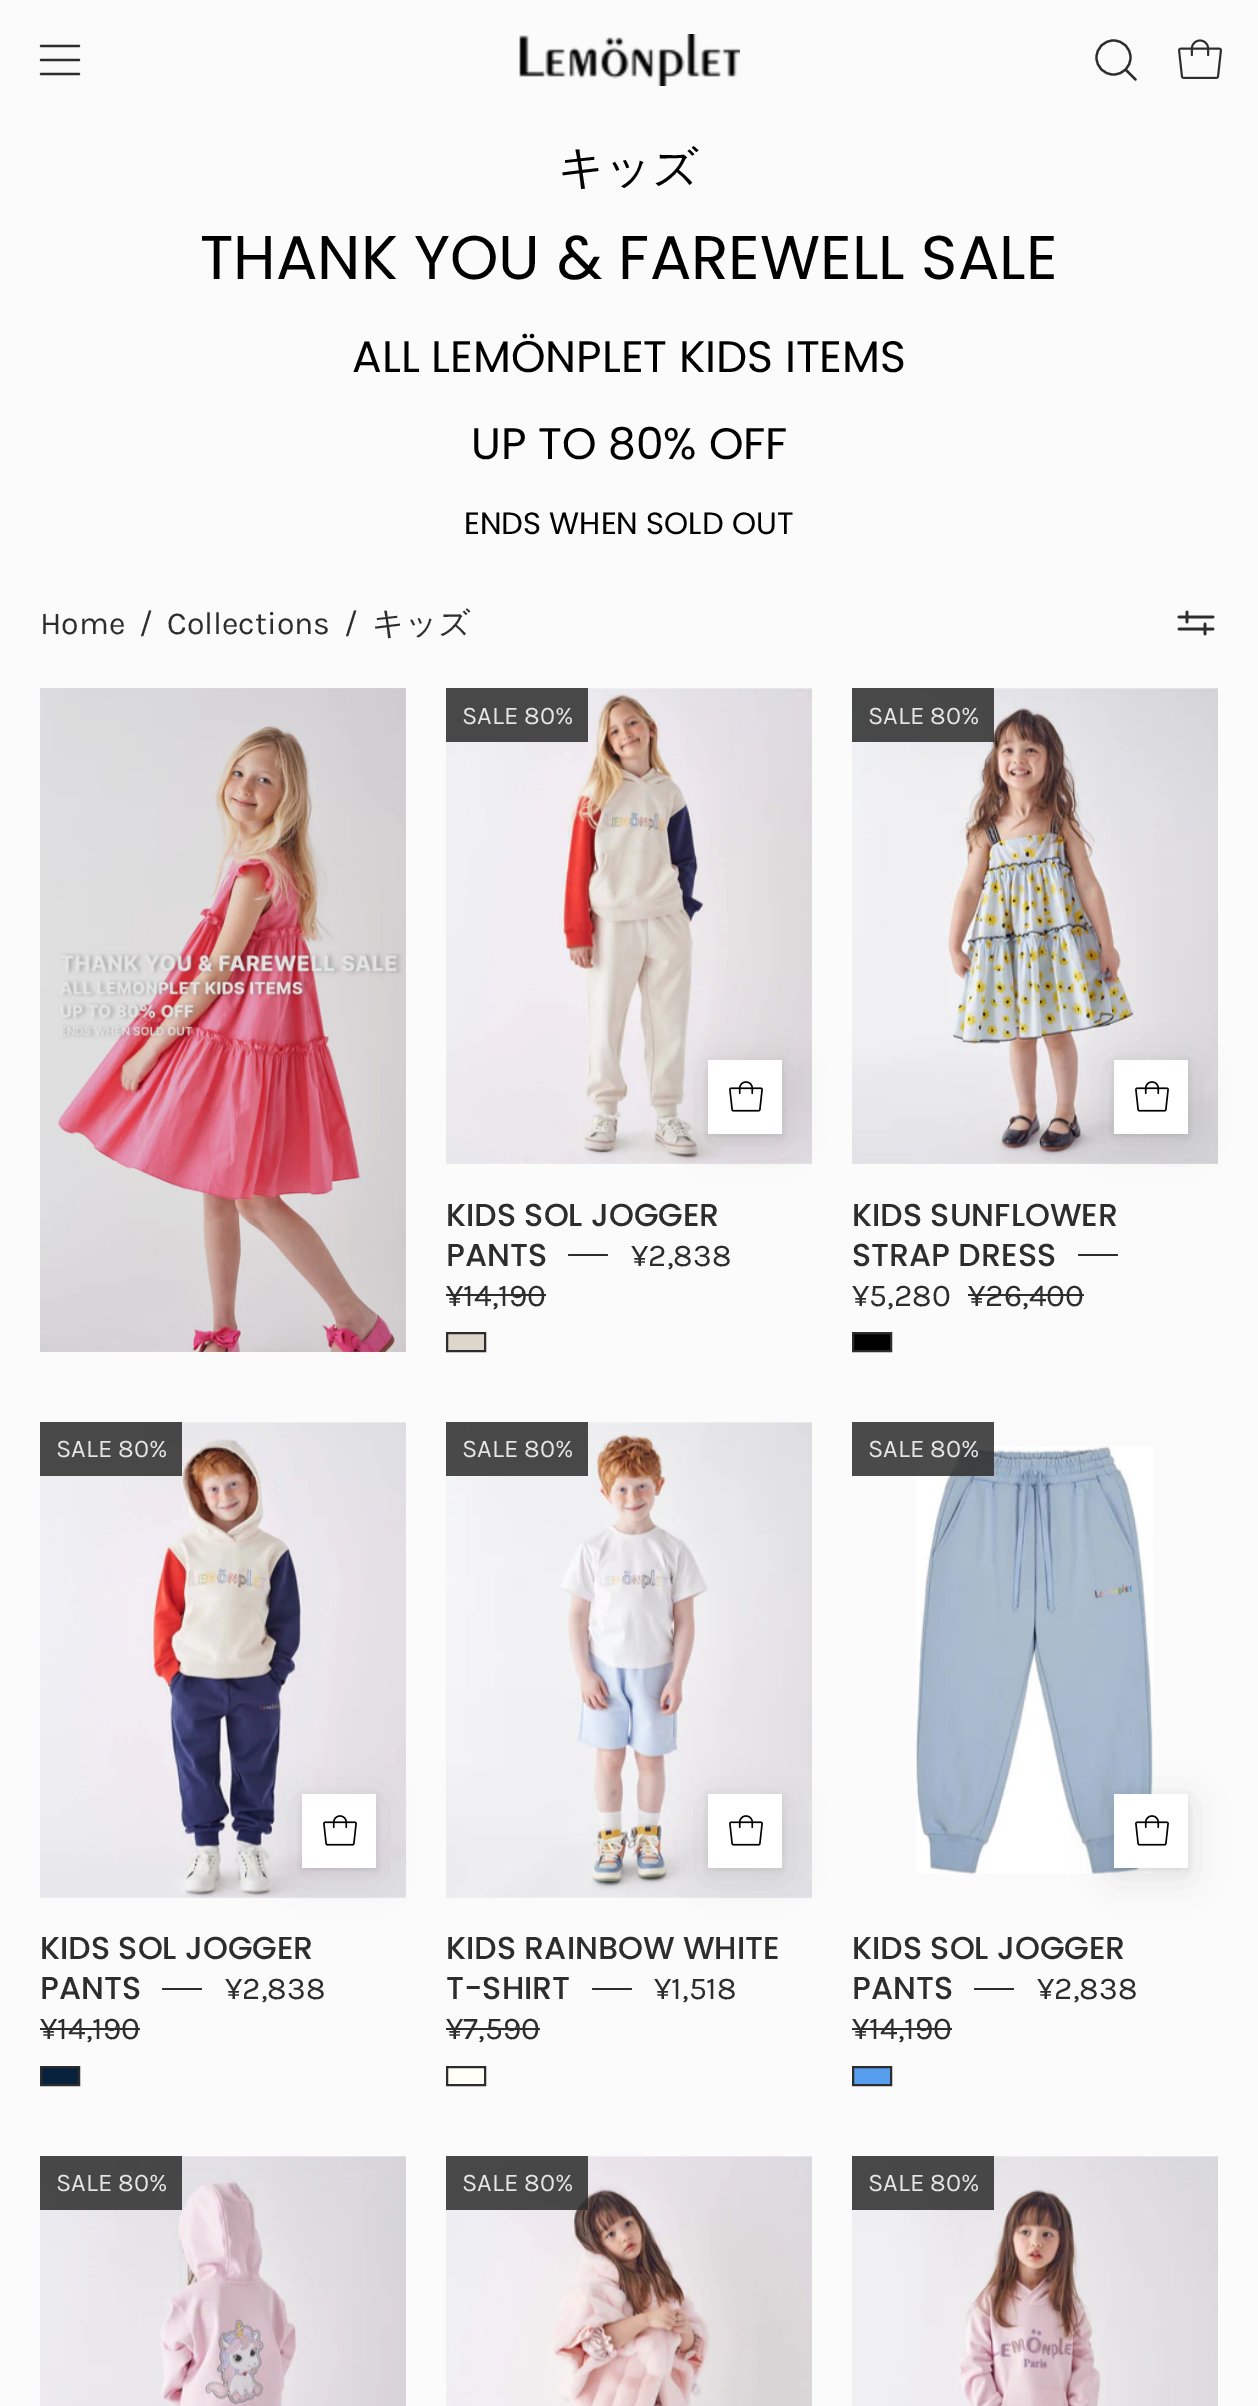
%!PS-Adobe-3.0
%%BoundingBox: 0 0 1258 2406
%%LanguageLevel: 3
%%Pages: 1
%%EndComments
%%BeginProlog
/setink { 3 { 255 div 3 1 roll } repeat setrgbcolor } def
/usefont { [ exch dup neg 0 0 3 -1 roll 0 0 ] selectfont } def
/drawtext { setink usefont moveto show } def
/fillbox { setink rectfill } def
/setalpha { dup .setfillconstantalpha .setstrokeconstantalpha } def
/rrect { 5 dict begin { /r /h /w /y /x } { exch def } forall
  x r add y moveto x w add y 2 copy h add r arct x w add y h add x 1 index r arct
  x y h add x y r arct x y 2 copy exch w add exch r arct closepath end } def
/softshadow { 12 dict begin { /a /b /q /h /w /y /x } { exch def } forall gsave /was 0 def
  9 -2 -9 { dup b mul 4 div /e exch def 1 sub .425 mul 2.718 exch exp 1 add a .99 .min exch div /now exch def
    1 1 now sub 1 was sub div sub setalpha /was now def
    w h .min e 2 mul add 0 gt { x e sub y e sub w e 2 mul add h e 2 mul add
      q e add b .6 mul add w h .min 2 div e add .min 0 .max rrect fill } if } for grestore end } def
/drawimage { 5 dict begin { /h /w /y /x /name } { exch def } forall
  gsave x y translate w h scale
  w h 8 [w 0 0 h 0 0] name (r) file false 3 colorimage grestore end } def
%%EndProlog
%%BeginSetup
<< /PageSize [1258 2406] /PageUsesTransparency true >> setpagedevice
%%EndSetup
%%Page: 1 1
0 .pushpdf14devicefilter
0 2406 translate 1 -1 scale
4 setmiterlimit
0 0 1258 2406 251 251 251 fillbox
45 45 45 setink
2.3 setlinewidth
1 setlinecap
1 setlinejoin
41 60 moveto 79 60 lineto 41 46 moveto 79 46 lineto 41 74 moveto 79 74 lineto stroke
(assets/img1.rgb) 519 34 221 52 drawimage
2.2 setlinewidth
1113.5 74.5 moveto 1123 74.5 1130.5 67 1130.5 57.5 curveto 1130.5 48 1123 40.5 1113.5 40.5 curveto 1104 40.5 1096.5 48 1096.5 57.5 curveto 1096.5 67 1104 74.5 1113.5 74.5 curveto closepath 1125.5 69.5 moveto 1135.5 79.5 lineto stroke
(assets/img2.rgb) 1178 39 44 40 drawimage
(キッズ) 558 183 /WenQuanYiZenHei-Medium 46 0 0 0 drawtext
(THANK YOU & FAREWELL SALE) 200 279 /Poppins-Regular 61.6 0 0 0 drawtext
(ALL LEMÖNPLET KIDS ITEMS) 352 372 /Poppins-Regular 44 0 0 0 drawtext
(UP TO 80% OFF) 471 459 /Poppins-Regular 44 0 0 0 drawtext
(ENDS WHEN SOLD OUT) 464 534 /Poppins-Regular 30.75 0 0 0 drawtext
(Home) 40 634 /Karla-Regular 32 45 45 45 drawtext
(/) 139 634 /Karla-Regular 32 45 45 45 drawtext
(Collections) 167 634 /Karla-Regular 32 45 45 45 drawtext
(/) 344 634 /Karla-Regular 32 45 45 45 drawtext
(キッズ) 372 634 /WenQuanYiZenHei-Medium 32 45 45 45 drawtext
(assets/img3.rgb) 1177 610 38 26 drawimage
(assets/img4.rgb) 40 688 366 664 drawimage
(assets/img5.rgb) 446 688 366 476 drawimage
0.86 setalpha
446 688 142 54 45 45 45 fillbox
1 setalpha
(SALE 80%) 462 724 /Karla-Regular 25.5 229 229 229 drawtext
0 0 0 setink
708 1062 74 74 0 3 0.07 softshadow
708 1068 74 74 0 20 0.1 softshadow
708 1060 74 74 255 255 255 fillbox
(assets/img6.rgb) 729 1081 34 31 drawimage
(KIDS SOL JOGGER) 446 1226 /Poppins-Medium 31.75 45 45 45 drawtext
(PANTS) 446 1266 /Poppins-Medium 31.75 45 45 45 drawtext
568 1254 40 2 1 rrect fill
(¥2,838) 631 1266 /Karla-Regular 31.75 45 45 45 drawtext
(¥14,190) 446 1306 /Karla-Regular 31.75 45 45 45 drawtext
446 1294 100 2 45 45 45 fillbox
221 215 203 setink
447 1333 moveto 485 1333 lineto 485 1351 lineto 447 1351 lineto closepath gsave fill grestore
45 45 45 setink
2 setlinewidth
0 setlinecap
0 setlinejoin
stroke
(assets/img7.rgb) 852 688 366 476 drawimage
0.86 setalpha
852 688 142 54 45 45 45 fillbox
1 setalpha
(SALE 80%) 868 724 /Karla-Regular 25.5 229 229 229 drawtext
0 0 0 setink
1114 1062 74 74 0 3 0.07 softshadow
1114 1068 74 74 0 20 0.1 softshadow
1114 1060 74 74 255 255 255 fillbox
(assets/img6.rgb) 1135 1081 34 31 drawimage
(KIDS SUNFLOWER) 852 1226 /Poppins-Medium 31.75 45 45 45 drawtext
(STRAP DRESS) 852 1266 /Poppins-Medium 31.75 45 45 45 drawtext
1078 1254 40 2 1 rrect fill
(¥5,280) 852 1306 /Karla-Regular 31.75 45 45 45 drawtext
(¥26,400) 968 1306 /Karla-Regular 31.75 45 45 45 drawtext
968 1294 116 2 45 45 45 fillbox
0 0 0 setink
853 1333 moveto 891 1333 lineto 891 1351 lineto 853 1351 lineto closepath gsave fill grestore
45 45 45 setink
stroke
(assets/img8.rgb) 40 1422 366 476 drawimage
0.86 setalpha
40 1422 142 54 45 45 45 fillbox
1 setalpha
(SALE 80%) 56 1457 /Karla-Regular 25.5 229 229 229 drawtext
0 0 0 setink
302 1796 74 74 0 3 0.07 softshadow
302 1802 74 74 0 20 0.1 softshadow
302 1794 74 74 255 255 255 fillbox
(assets/img6.rgb) 323 1815 34 31 drawimage
(KIDS SOL JOGGER) 40 1959 /Poppins-Medium 31.75 45 45 45 drawtext
(PANTS) 40 1999 /Poppins-Medium 31.75 45 45 45 drawtext
162 1988 40 2 1 rrect fill
(¥2,838) 225 1999 /Karla-Regular 31.75 45 45 45 drawtext
(¥14,190) 40 2039 /Karla-Regular 31.75 45 45 45 drawtext
40 2028 100 2 45 45 45 fillbox
8 34 61 setink
41 2067 moveto 79 2067 lineto 79 2085 lineto 41 2085 lineto closepath gsave fill grestore
45 45 45 setink
stroke
(assets/img9.rgb) 446 1422 366 476 drawimage
0.86 setalpha
446 1422 142 54 45 45 45 fillbox
1 setalpha
(SALE 80%) 462 1457 /Karla-Regular 25.5 229 229 229 drawtext
0 0 0 setink
708 1796 74 74 0 3 0.07 softshadow
708 1802 74 74 0 20 0.1 softshadow
708 1794 74 74 255 255 255 fillbox
(assets/img6.rgb) 729 1815 34 31 drawimage
(KIDS RAINBOW WHITE) 446 1959 /Poppins-Medium 31.75 45 45 45 drawtext
(T-SHIRT) 446 1999 /Poppins-Medium 31.75 45 45 45 drawtext
592 1988 40 2 1 rrect fill
(¥1,518) 654 1999 /Karla-Regular 31.75 45 45 45 drawtext
(¥7,590) 446 2039 /Karla-Regular 31.75 45 45 45 drawtext
446 2028 94 2 45 45 45 fillbox
255 255 248 setink
447 2067 moveto 485 2067 lineto 485 2085 lineto 447 2085 lineto closepath gsave fill grestore
45 45 45 setink
stroke
(assets/img10.rgb) 916 1446 237 428 drawimage
0.86 setalpha
852 1422 142 54 45 45 45 fillbox
1 setalpha
(SALE 80%) 868 1457 /Karla-Regular 25.5 229 229 229 drawtext
0 0 0 setink
1114 1796 74 74 0 3 0.07 softshadow
1114 1802 74 74 0 20 0.1 softshadow
1114 1794 74 74 255 255 255 fillbox
(assets/img6.rgb) 1135 1815 34 31 drawimage
(KIDS SOL JOGGER) 852 1959 /Poppins-Medium 31.75 45 45 45 drawtext
(PANTS) 852 1999 /Poppins-Medium 31.75 45 45 45 drawtext
974 1988 40 2 1 rrect fill
(¥2,838) 1037 1999 /Karla-Regular 31.75 45 45 45 drawtext
(¥14,190) 852 2039 /Karla-Regular 31.75 45 45 45 drawtext
852 2028 100 2 45 45 45 fillbox
88 158 239 setink
853 2067 moveto 891 2067 lineto 891 2085 lineto 853 2085 lineto closepath gsave fill grestore
45 45 45 setink
stroke
(assets/img11.rgb) 40 2156 366 250 drawimage
0.86 setalpha
40 2156 142 54 45 45 45 fillbox
1 setalpha
(SALE 80%) 56 2191 /Karla-Regular 25.5 229 229 229 drawtext
(assets/img12.rgb) 446 2156 366 250 drawimage
0.86 setalpha
446 2156 142 54 45 45 45 fillbox
1 setalpha
(SALE 80%) 462 2191 /Karla-Regular 25.5 229 229 229 drawtext
(assets/img13.rgb) 852 2156 366 250 drawimage
0.86 setalpha
852 2156 142 54 45 45 45 fillbox
1 setalpha
(SALE 80%) 868 2191 /Karla-Regular 25.5 229 229 229 drawtext
.poppdf14devicefilter showpage
%%EOF
